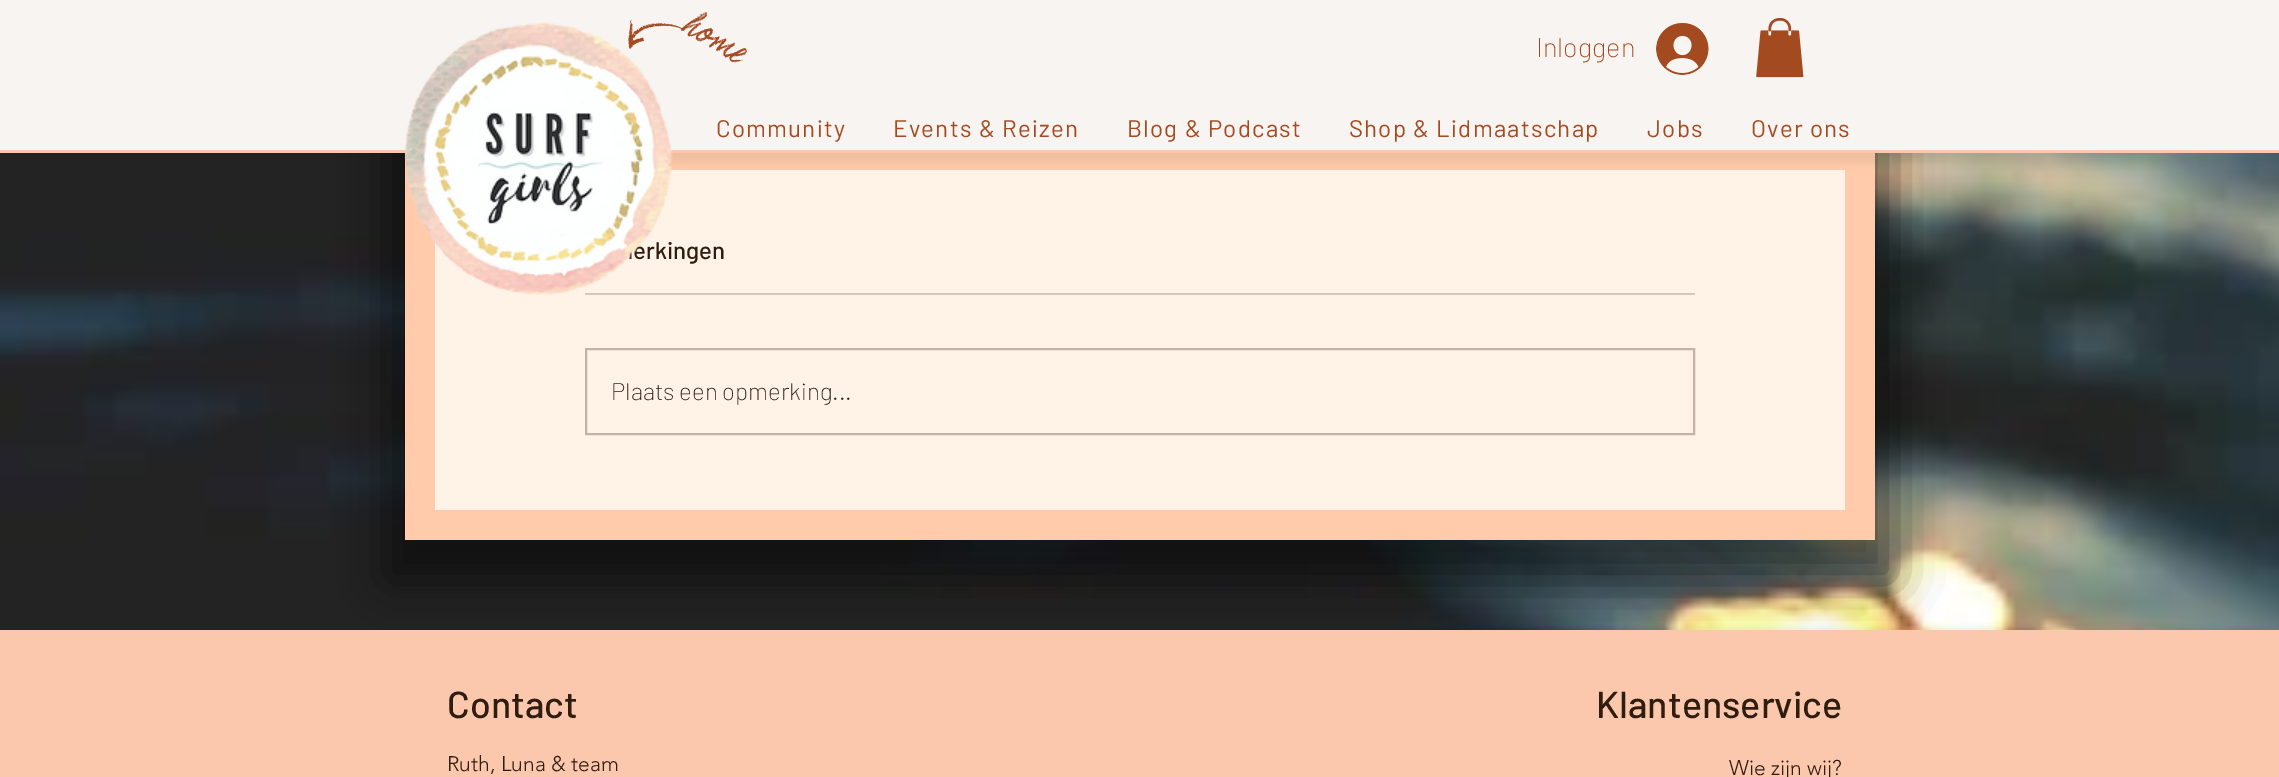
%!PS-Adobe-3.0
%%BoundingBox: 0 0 2279 777
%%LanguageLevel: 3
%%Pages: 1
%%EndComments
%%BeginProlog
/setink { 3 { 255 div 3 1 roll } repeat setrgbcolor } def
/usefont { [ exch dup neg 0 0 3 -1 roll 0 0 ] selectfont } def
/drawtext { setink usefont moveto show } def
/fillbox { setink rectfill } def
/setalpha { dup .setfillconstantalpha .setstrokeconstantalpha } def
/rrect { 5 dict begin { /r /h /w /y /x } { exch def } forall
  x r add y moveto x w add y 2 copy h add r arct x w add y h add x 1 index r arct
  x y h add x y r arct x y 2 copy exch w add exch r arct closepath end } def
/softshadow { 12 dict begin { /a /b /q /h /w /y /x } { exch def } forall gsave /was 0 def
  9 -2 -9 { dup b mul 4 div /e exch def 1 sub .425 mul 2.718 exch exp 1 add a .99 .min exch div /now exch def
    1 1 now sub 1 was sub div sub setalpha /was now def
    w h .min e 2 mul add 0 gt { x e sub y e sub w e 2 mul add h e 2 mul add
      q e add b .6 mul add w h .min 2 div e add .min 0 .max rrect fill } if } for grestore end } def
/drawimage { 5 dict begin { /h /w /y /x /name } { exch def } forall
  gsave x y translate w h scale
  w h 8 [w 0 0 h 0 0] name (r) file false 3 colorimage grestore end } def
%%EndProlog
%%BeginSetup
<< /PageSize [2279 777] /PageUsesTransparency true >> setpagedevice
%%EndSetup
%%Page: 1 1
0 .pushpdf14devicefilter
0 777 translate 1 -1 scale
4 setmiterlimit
0 0 2279 777 255 255 255 fillbox
(assets/img5.rgb) 0 153 2279 477 drawimage
0 0 0 setink
386 -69 1509 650 0 23 0.52 softshadow
405 153 1470 387 255 203 170 fillbox
435 170 1410 340 255 243 232 fillbox
0 0 0 setink
-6 -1 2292 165 0 4 0.05 softshadow
0 150 2279 3 251 200 173 fillbox
0 0 2279 150 248 244 241 fillbox
(erkingen) 633 259 /Barlow-Medium 24 48 29 16 drawtext
585 293 1110 2 214 200 189 fillbox
(assets/img1.rgb) 404 22 269 273 drawimage
/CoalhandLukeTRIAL-Italic 33 usefont
163 74 33 setink
gsave 679 29 translate 30.2 rotate 0 0 moveto (home) show grestore
(assets/img2.rgb) 628 19 57 31 drawimage
(Inloggen) 1536 57 /Barlow-ExtraLight 27 163 74 33 drawtext
(assets/img3.rgb) 1656 23 53 52 drawimage
(assets/img4.rgb) 1756 18 48 60 drawimage
/Barlow-Regular 24 usefont
716 137 moveto 1.25 0 (Community) ashow
893 137 moveto 1.25 0 (Events & Reizen) ashow
1127 137 moveto 1.25 0 (Blog & Podcast) ashow
1349 137 moveto 1.25 0 (Shop & Lidmaatschap) ashow
1647 137 moveto 1.25 0 (Jobs) ashow
1751 137 moveto 1.25 0 (Over ons) ashow
193 179 167 setink
2 setlinewidth
586 349 1108 85 rectstroke
(Plaats een opmerking...) 611 400 /Barlow-ExtraLight 24 48 29 16 drawtext
0 0 0 setink
-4 627 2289 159 0 3 0.05 softshadow
0 630 2279 147 251 200 173 fillbox
(Contact) 447 718 /Barlow-Medium 37.5 48 29 16 drawtext
(Ruth, Luna & team) 447 771 /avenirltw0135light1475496-Light 21 48 29 16 drawtext
(Klantenservice) 1596 718 /Barlow-Medium 37.5 48 29 16 drawtext
(Wie zijn wij?) 1729 775 /avenirltw0135light1475496-Light 21 48 29 16 drawtext
.poppdf14devicefilter showpage
%%EOF
